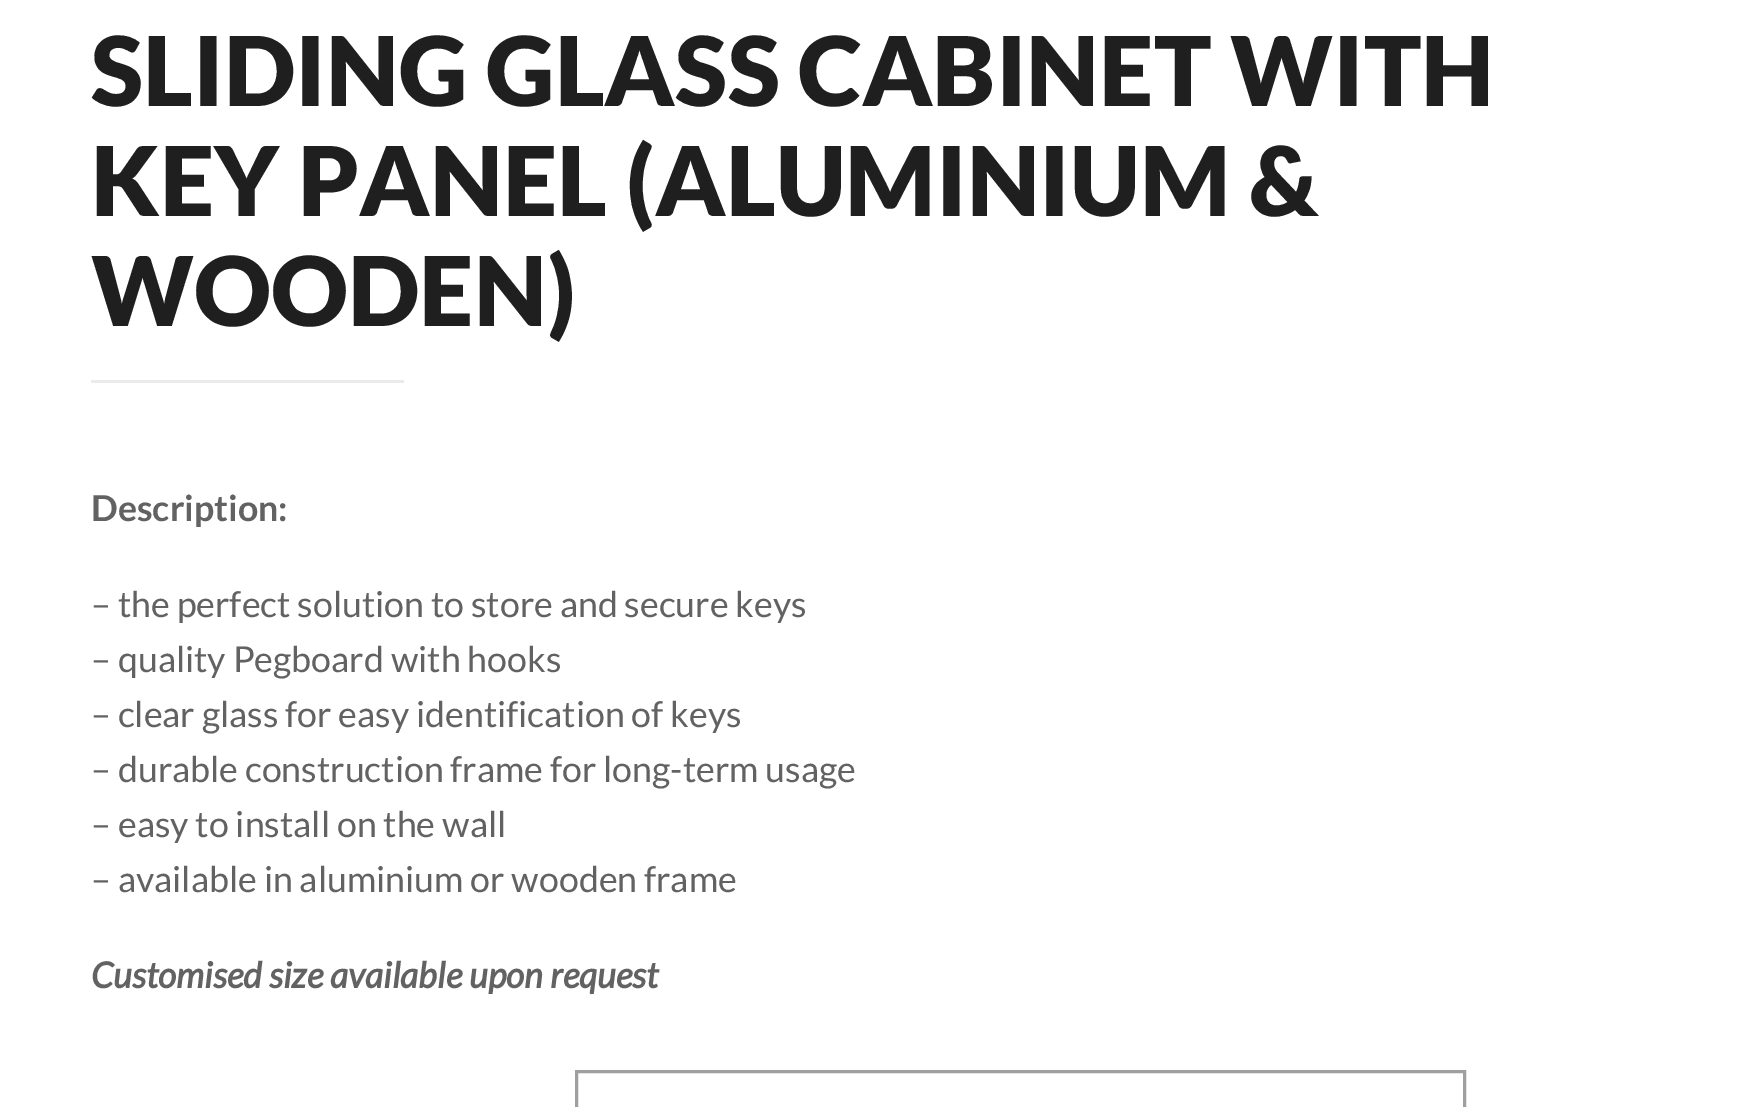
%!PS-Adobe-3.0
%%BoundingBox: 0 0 1747 1107
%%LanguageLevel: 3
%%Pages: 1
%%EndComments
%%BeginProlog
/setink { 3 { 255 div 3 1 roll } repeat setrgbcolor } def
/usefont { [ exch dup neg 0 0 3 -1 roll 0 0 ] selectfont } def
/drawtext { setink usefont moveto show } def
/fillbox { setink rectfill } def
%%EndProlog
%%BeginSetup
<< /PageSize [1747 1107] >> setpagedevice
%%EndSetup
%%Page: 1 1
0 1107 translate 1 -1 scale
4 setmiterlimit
0 0 1747 1107 255 255 255 fillbox
(SLIDING GLASS CABINET WITH) 91 106 /Lato-Black 96.25 31 31 31 drawtext
(KEY PANEL \(ALUMINIUM &) 91 216 /Lato-Black 96.25 31 31 31 drawtext
(WOODEN\)) 91 326 /Lato-Black 96.25 31 31 31 drawtext
91 380 313 3 235 235 235 fillbox
(Description:) 91 521 /Lato-Bold 35.75 98 98 98 drawtext
(– the perfect solution to store and secure keys) 91 617 /Lato-Regular 35.75 98 98 98 drawtext
(– quality Pegboard with hooks) 91 672 /Lato-Regular 35.75 98 98 98 drawtext
(– clear glass for easy identification of keys) 91 727 /Lato-Regular 35.75 98 98 98 drawtext
(– durable construction frame for long-term usage) 91 782 /Lato-Regular 35.75 98 98 98 drawtext
(– easy to install on the wall) 91 837 /Lato-Regular 35.75 98 98 98 drawtext
(– available in aluminium or wooden frame) 91 892 /Lato-Regular 35.75 98 98 98 drawtext
(Customised size available upon request) 91 988 /Lato-BoldItalic 35.75 98 98 98 drawtext
159 159 159 setink
3 setlinewidth
576.5 1071.5 888 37 rectstroke
showpage
%%EOF
